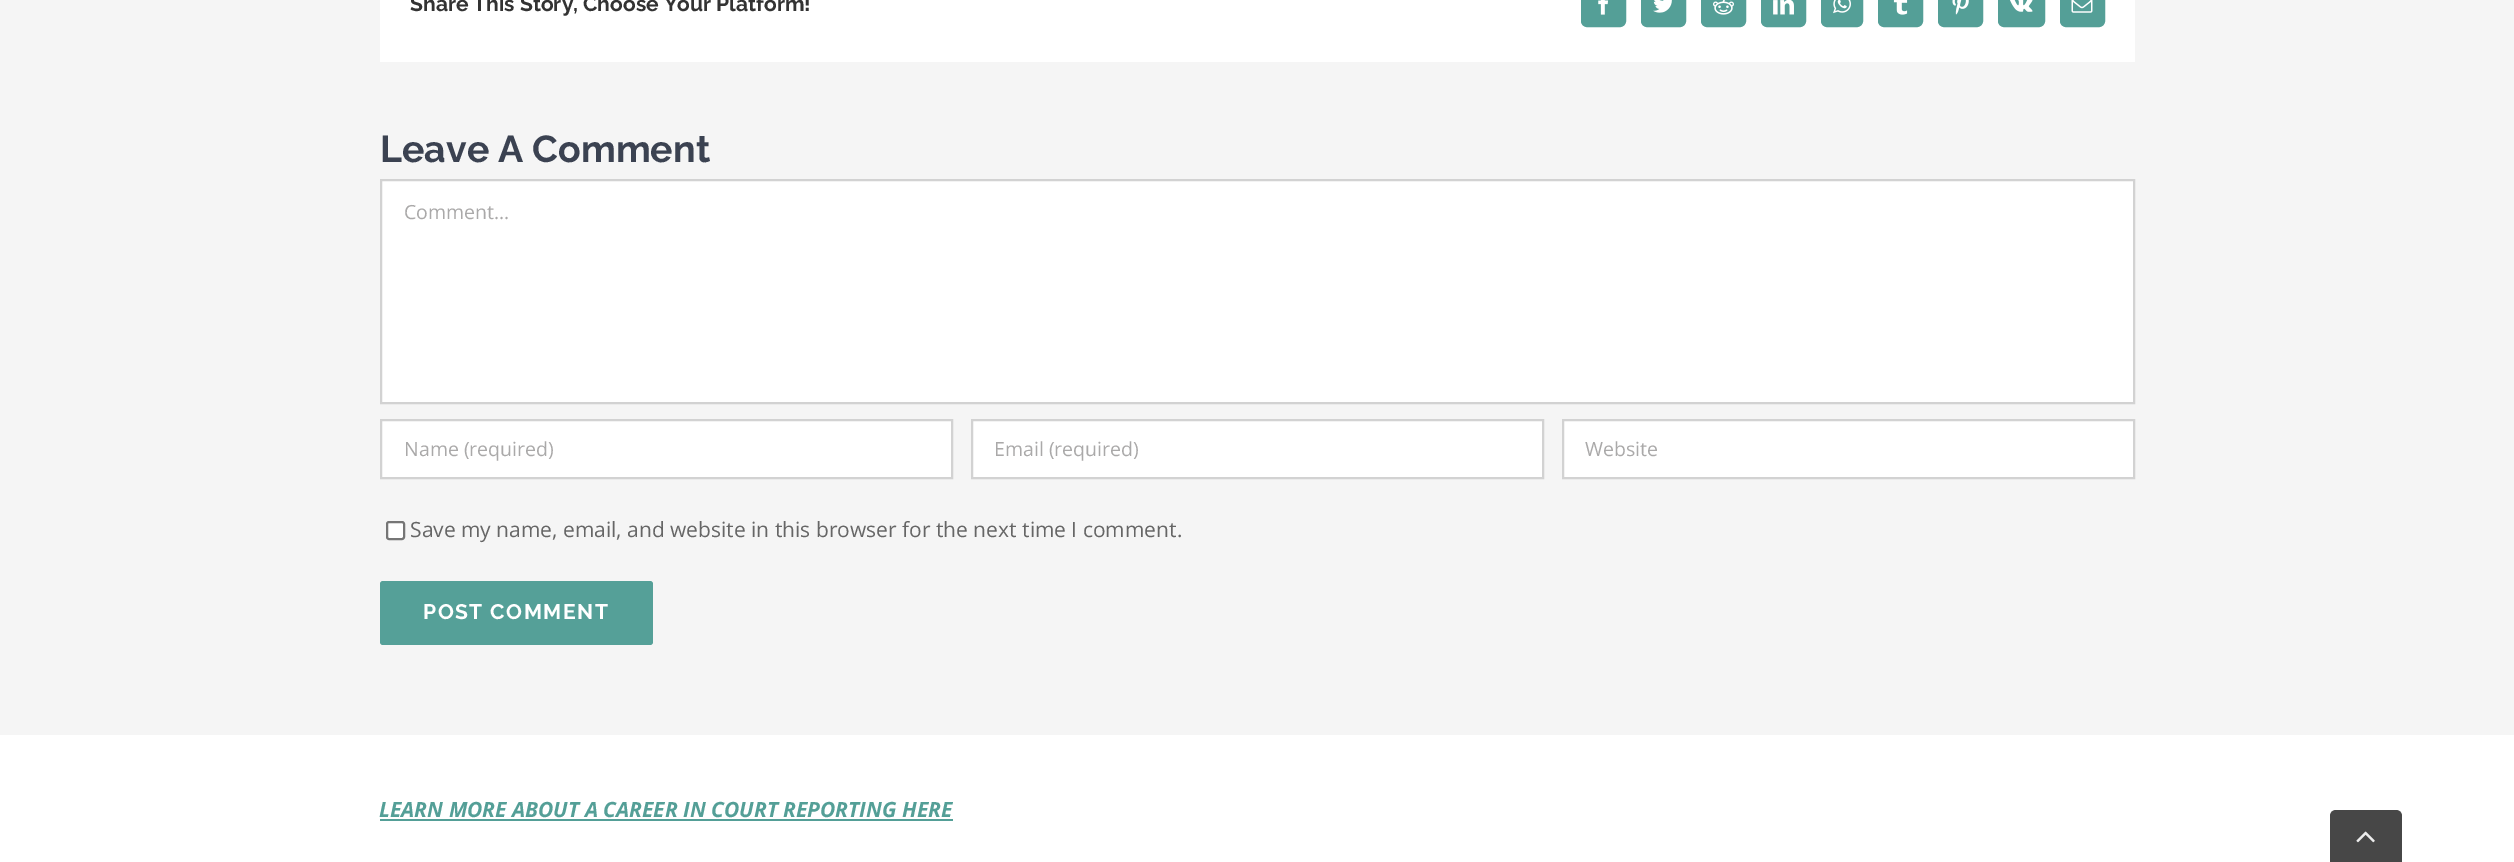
%!PS-Adobe-3.0
%%BoundingBox: 0 0 2514 862
%%LanguageLevel: 3
%%Pages: 1
%%EndComments
%%BeginProlog
/setink { 3 { 255 div 3 1 roll } repeat setrgbcolor } def
/usefont { [ exch dup neg 0 0 3 -1 roll 0 0 ] selectfont } def
/drawtext { setink usefont moveto show } def
/fillbox { setink rectfill } def
/rrect { 5 dict begin { /r /h /w /y /x } { exch def } forall
  x r add y moveto x w add y 2 copy h add r arct x w add y h add x 1 index r arct
  x y h add x y r arct x y 2 copy exch w add exch r arct closepath end } def
/drawimage { 5 dict begin { /h /w /y /x /name } { exch def } forall
  gsave x y translate w h scale
  w h 8 [w 0 0 h 0 0] name (r) file false 3 colorimage grestore end } def
%%EndProlog
%%BeginSetup
<< /PageSize [2514 862] >> setpagedevice
%%EndSetup
%%Page: 1 1
0 862 translate 1 -1 scale
4 setmiterlimit
0 0 2514 862 245 245 245 fillbox
380 0 1755 62 255 255 255 fillbox
(Share This Story, Choose Your Platform!) 410 11 /Raleway-Thin 21 51 51 51 drawtext
84 159 151 setink
1582 -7 43 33 5 rrect gsave fill grestore
2 setlinewidth
stroke
(assets/img1.rgb) 1598 0 11 15 drawimage
1642 -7 43 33 5 rrect gsave fill grestore
stroke
(assets/img2.rgb) 1653 0 19 13 drawimage
1702 -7 43 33 5 rrect gsave fill grestore
stroke
(assets/img3.rgb) 1713 0 21 15 drawimage
1762 -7 43 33 5 rrect gsave fill grestore
stroke
(assets/img4.rgb) 1773 0 21 15 drawimage
1822 -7 40 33 5 rrect gsave fill grestore
stroke
(assets/img5.rgb) 1833 0 18 14 drawimage
1879 -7 43 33 5 rrect gsave fill grestore
stroke
(assets/img6.rgb) 1893 0 15 15 drawimage
1939 -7 43 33 5 rrect gsave fill grestore
stroke
(assets/img7.rgb) 1952 0 17 15 drawimage
1999 -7 45 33 5 rrect gsave fill grestore
stroke
(assets/img8.rgb) 2010 0 23 12 drawimage
2061 -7 43 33 5 rrect gsave fill grestore
stroke
(assets/img9.rgb) 2071 0 22 13 drawimage
(Leave A Comment) 380 162 /Raleway-Thin 37.5 59 66 81 drawtext
255 255 255 setink
381 180 moveto 2134 180 lineto 2134 403 lineto 381 403 lineto closepath gsave fill grestore
210 210 210 setink
stroke
(Comment...) 404 219 /OpenSans-Regular 19.5 170 169 169 drawtext
255 255 255 setink
381 420 moveto 952 420 lineto 952 478 lineto 381 478 lineto closepath gsave fill grestore
210 210 210 setink
stroke
(Name \(required\)) 404 456 /OpenSans-Regular 19.5 170 169 169 drawtext
255 255 255 setink
972 420 moveto 1543 420 lineto 1543 478 lineto 972 478 lineto closepath gsave fill grestore
210 210 210 setink
stroke
(Email \(required\)) 994 456 /OpenSans-Regular 19.5 170 169 169 drawtext
255 255 255 setink
1563 420 moveto 2134 420 lineto 2134 478 lineto 1563 478 lineto closepath gsave fill grestore
210 210 210 setink
stroke
(Website) 1585 456 /OpenSans-Regular 19.5 170 169 169 drawtext
255 255 255 setink
387 522 17 17 2 rrect gsave fill grestore
118 118 118 setink
stroke
(Save my name, email, and website in this browser for the next time I comment.) 410 537 /OpenSans-Regular 21 102 102 102 drawtext
85 160 152 setink
380 581 273 64 3 rrect fill
/Raleway-Thin 21 usefont
255 255 255 setink
423 619 moveto 1.5 0 (POST COMMENT) ashow
0 735 2514 127 255 255 255 fillbox
(LEARN MORE ABOUT A CAREER IN COURT REPORTING HERE) 379 817 /OpenSans-BoldItalic 21 84 159 151 drawtext
380 819 573 2 84 159 151 fillbox
71 71 71 setink
2336 810 moveto 2396 810 lineto 2399.5 810 2402 812.5 2402 816 curveto 2402 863 lineto 2330 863 lineto 2330 816 lineto 2330 812.5 2332.5 810 2336 810 curveto closepath fill
(assets/img10.rgb) 2356 831 19 12 drawimage
showpage
%%EOF
